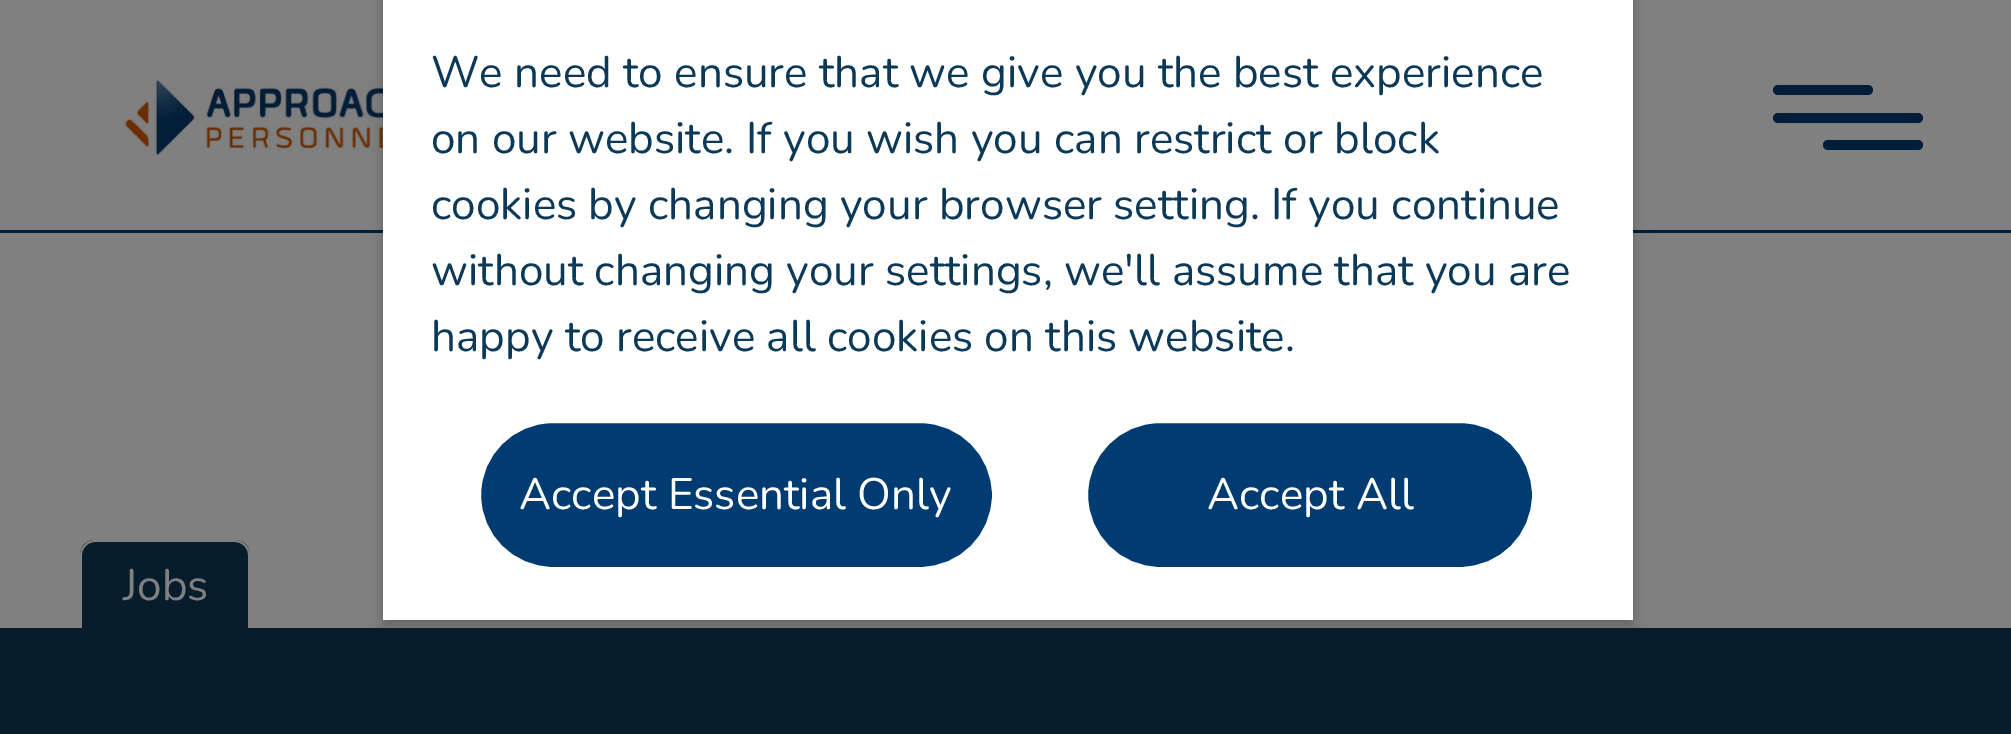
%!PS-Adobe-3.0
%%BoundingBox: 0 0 2011 734
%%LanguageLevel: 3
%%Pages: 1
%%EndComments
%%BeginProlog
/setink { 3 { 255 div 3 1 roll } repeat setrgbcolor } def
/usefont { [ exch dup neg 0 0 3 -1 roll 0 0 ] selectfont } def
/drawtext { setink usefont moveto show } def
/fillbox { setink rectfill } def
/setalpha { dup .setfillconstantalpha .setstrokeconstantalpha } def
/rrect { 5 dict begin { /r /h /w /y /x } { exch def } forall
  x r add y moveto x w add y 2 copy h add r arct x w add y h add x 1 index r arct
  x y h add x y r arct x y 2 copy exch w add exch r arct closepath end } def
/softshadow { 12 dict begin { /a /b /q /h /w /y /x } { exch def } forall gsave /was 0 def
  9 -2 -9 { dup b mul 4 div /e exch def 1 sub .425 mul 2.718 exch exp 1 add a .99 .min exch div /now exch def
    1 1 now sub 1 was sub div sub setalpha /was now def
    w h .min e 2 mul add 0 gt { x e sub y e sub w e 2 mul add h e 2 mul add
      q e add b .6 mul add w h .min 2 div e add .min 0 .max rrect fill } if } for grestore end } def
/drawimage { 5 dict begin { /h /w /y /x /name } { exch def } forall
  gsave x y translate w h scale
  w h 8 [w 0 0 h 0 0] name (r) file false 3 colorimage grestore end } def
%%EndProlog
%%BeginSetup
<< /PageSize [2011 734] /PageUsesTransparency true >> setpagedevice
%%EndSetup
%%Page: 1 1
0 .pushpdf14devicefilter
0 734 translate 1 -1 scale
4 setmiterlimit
0 0 2011 734 128 128 128 fillbox
0 230 2011 3 0 30 57 fillbox
(assets/img1.rgb) 124 79 259 77 drawimage
0 628 2011 106 7 29 44 fillbox
0 0 0 setink
383 -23 1250 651 0 7.5 0.2 softshadow
383 0 1250 620 255 255 255 fillbox
(We need to ensure that we give you the best experience) 431 87 /Nunito-Regular 44 13 57 88 drawtext
(on our website. If you wish you can restrict or block) 431 153 /Nunito-Regular 44 13 57 88 drawtext
(cookies by changing your browser setting. If you continue) 431 219 /Nunito-Regular 44 13 57 88 drawtext
(without changing your settings, we'll assume that you are) 431 285 /Nunito-Regular 44 13 57 88 drawtext
(happy to receive all cookies on this website.) 431 351 /Nunito-Regular 44 13 57 88 drawtext
0 60 114 setink
479.5 421.5 514 147 73.5 rrect gsave fill grestore
255 255 255 setink
3 setlinewidth
stroke
(Accept Essential Only) 519 509 /Nunito-Regular 44 255 255 255 drawtext
0 60 114 setink
1086.5 421.5 447 147 73.5 rrect gsave fill grestore
255 255 255 setink
stroke
(Accept All) 1207 509 /Nunito-Regular 44 255 255 255 drawtext
0 30 57 setink
1773 85 100 10 5 rrect fill
1773 113 150 10 5 rrect fill
1823 140 100 10 5 rrect fill
7 29 44 setink
95 540 moveto 235 540 lineto 243.5 540 250 546.5 250 555 curveto 250 628 lineto 80 628 lineto 80 555 lineto 80 546.5 86.5 540 95 540 curveto closepath fill
128 128 128 setink
95 540 moveto 235 540 lineto 243 540 250 547 250 555 curveto 250 628 lineto 80 628 lineto 80 555 lineto 80 547 87 540 95 540 curveto closepath 95 542 moveto 235 542 lineto 242 542 248 548 248 555 curveto 248 628 lineto 82 628 lineto 82 555 lineto 82 548 88 542 95 542 curveto closepath eofill
(Jobs) 123 600 /Nunito-Regular 44 128 128 128 drawtext
.poppdf14devicefilter showpage
%%EOF
